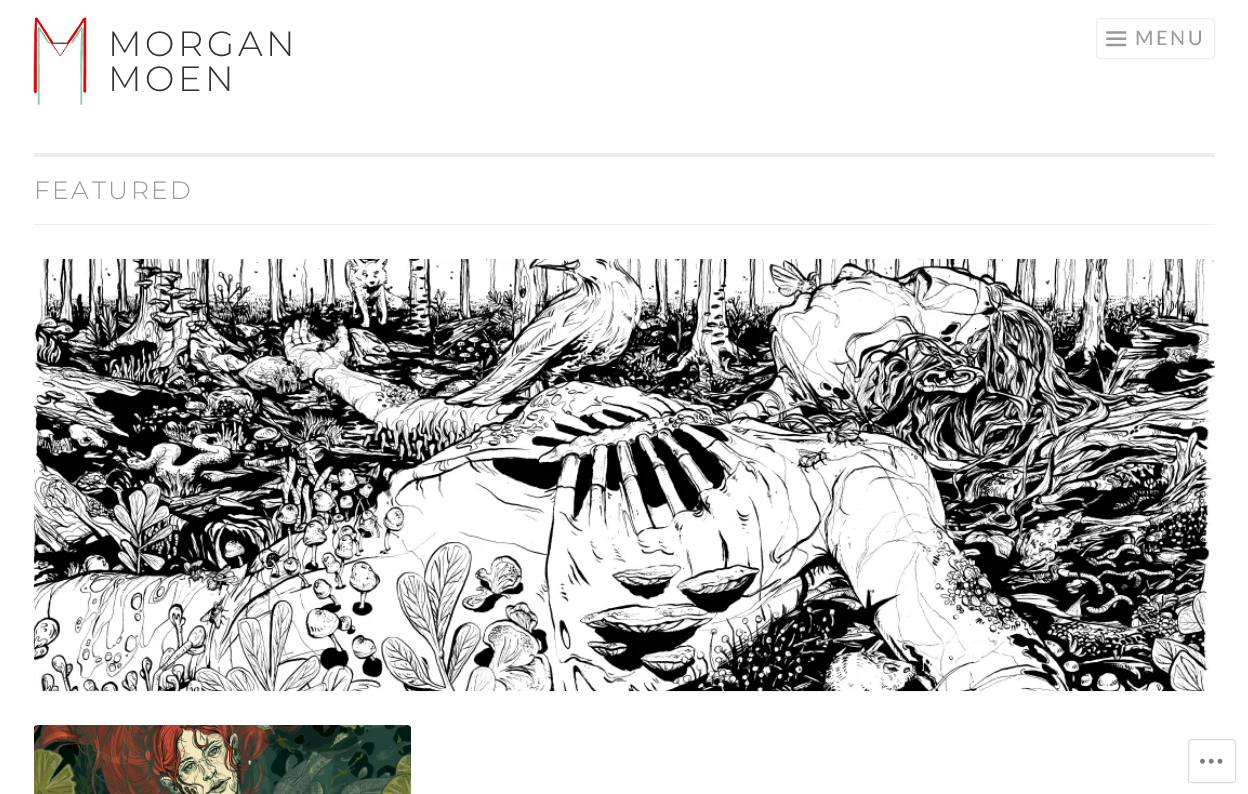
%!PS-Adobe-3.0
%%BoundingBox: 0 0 1248 794
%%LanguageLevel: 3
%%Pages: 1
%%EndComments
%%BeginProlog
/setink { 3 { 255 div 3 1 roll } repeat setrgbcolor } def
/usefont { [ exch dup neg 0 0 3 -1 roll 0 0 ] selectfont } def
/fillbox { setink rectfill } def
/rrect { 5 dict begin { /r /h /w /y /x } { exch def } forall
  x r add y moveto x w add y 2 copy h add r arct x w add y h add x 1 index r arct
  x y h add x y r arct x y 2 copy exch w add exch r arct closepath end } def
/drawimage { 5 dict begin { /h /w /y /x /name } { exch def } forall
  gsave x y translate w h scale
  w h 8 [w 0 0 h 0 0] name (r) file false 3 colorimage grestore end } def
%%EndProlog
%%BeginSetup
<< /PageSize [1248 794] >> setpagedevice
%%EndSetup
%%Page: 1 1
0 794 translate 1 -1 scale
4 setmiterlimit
0 0 1248 794 255 255 255 fillbox
34 153 1181 4 238 238 238 fillbox
(assets/img1.rgb) 33 17 54 88 drawimage
/Montserrat-Thin 35 usefont
51 51 51 setink
108 56 moveto 3.75 0 (MORGAN) ashow
108 91 moveto 3.75 0 (MOEN) ashow
238 238 238 setink
1096.5 18.5 118 40 3.5 rrect stroke
(assets/img2.rgb) 1106 31 21 16 drawimage
/Lato-Regular 20 usefont
153 153 153 setink
1135 45 moveto 2.5 0 (MENU) ashow
34 224 1181 1 238 238 238 fillbox
/Montserrat-Thin 25 usefont
153 153 153 setink
34 199 moveto 2.5 0 (FEATURED) ashow
(assets/img3.rgb) 33 258 1182 434 drawimage
(assets/img4.rgb) 34 725 377 69 drawimage
221 221 223 setink
1188.5 739.5 47 43 3.5 rrect stroke
(assets/img5.rgb) 1200 758 23 6 drawimage
showpage
%%EOF
